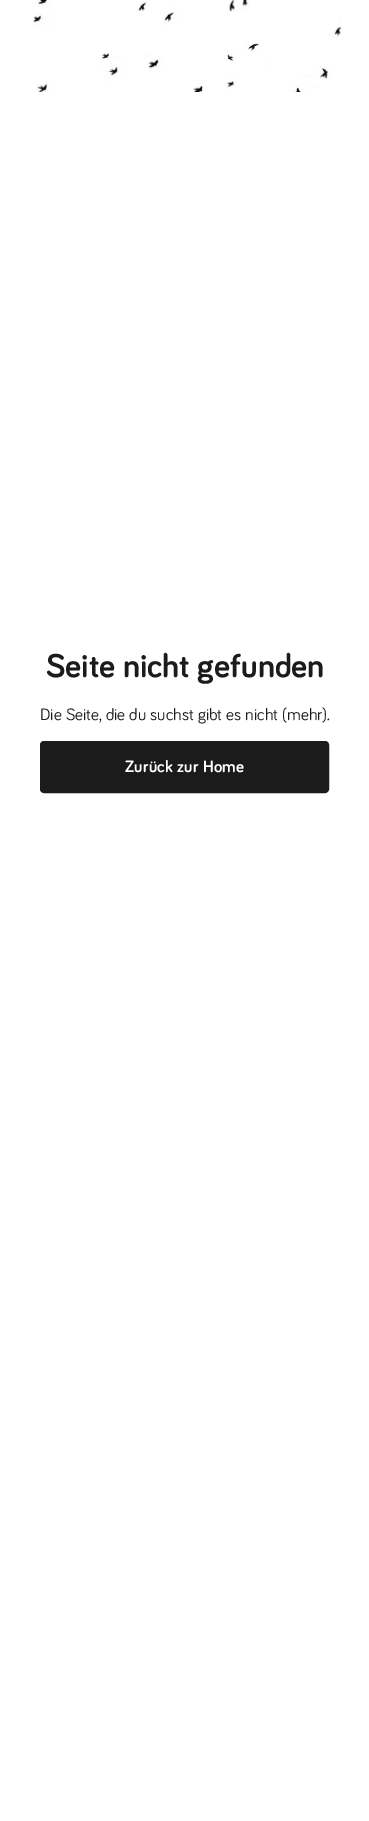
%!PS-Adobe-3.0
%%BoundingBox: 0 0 369 1821
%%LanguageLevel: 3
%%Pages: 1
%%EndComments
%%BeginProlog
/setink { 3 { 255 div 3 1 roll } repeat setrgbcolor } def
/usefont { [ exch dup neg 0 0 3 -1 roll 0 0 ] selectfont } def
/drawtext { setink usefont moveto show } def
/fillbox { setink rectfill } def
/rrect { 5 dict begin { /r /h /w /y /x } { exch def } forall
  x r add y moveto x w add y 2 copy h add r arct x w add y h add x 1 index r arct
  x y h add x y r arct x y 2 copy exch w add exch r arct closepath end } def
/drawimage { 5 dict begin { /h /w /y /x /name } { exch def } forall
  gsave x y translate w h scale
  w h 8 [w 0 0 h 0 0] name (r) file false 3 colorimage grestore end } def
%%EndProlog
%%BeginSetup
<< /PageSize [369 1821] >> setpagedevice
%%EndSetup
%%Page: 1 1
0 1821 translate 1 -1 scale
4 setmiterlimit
0 0 369 1821 255 255 255 fillbox
(assets/img1.rgb) 33 0 309 92 drawimage
(Seite nicht gefunden) 46 677 /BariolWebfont-Bold 34 27 27 27 drawtext
(Die Seite, die du suchst gibt es nicht \(mehr\).) 40 720 /BariolWebfont-Regular 17 27 27 27 drawtext
41 742 287 50 3 rrect gsave fill grestore
2 setlinewidth
stroke
/BariolWebfont-Bold 17 usefont
255 255 255 setink
125 772 moveto 0.25 0 (Zurück zur Home) ashow
showpage
%%EOF
